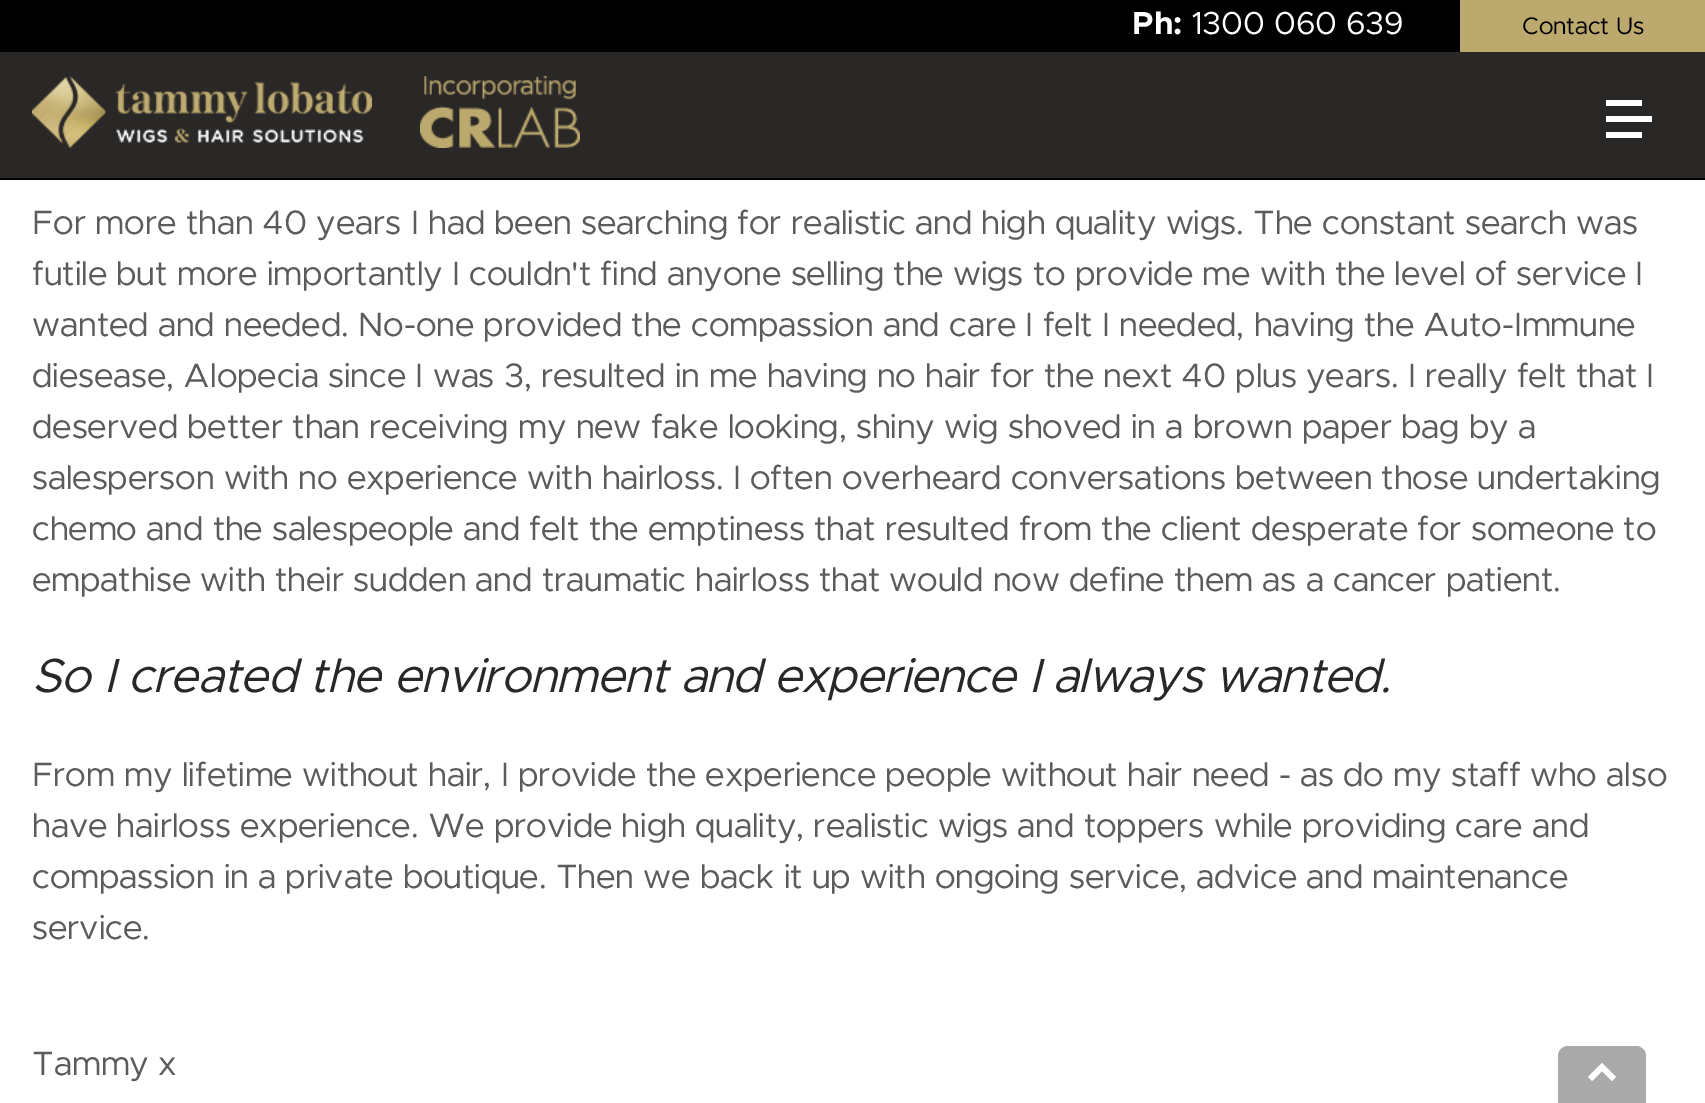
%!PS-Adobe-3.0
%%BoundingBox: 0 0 1705 1103
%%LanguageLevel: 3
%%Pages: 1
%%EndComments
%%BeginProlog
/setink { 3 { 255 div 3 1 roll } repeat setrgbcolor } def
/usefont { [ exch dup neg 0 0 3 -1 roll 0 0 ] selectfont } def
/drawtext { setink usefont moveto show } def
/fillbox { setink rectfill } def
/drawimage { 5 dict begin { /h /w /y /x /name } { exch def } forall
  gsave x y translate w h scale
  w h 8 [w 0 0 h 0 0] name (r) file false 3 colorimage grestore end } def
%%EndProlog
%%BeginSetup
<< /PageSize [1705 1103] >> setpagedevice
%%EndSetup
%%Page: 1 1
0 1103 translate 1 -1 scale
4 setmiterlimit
0 0 1705 1103 255 255 255 fillbox
0 52 1705 126 42 39 39 fillbox
0 178 1705 2 0 0 0 fillbox
0 0 1460 52 0 0 0 fillbox
(Ph:) 1132 34 /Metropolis-Bold 32 255 255 255 drawtext
(1300 060 639) 1191 34 /Metropolis-Regular 32 255 255 255 drawtext
1460 0 245 52 188 169 110 fillbox
(Contact Us) 1522 34 /Metropolis-Regular 24 0 0 0 drawtext
(assets/img1.rgb) 32 76 340 72 drawimage
(assets/img2.rgb) 420 76 160 72 drawimage
1606 100 36 6 255 255 255 fillbox
1606 116 46 6 255 255 255 fillbox
1606 132 36 6 255 255 255 fillbox
(For more than 40 years I had been searching for realistic and high quality wigs. The constant search was) 32 234 /Metropolis-Regular 34 91 91 89 drawtext
(futile but more importantly I couldn't find anyone selling the wigs to provide me with the level of service I) 32 285 /Metropolis-Regular 34 91 91 89 drawtext
(wanted and needed. No-one provided the compassion and care I felt I needed, having the Auto-Immune) 32 336 /Metropolis-Regular 34 91 91 89 drawtext
(diesease, Alopecia since I was 3, resulted in me having no hair for the next 40 plus years. I really felt that I) 32 387 /Metropolis-Regular 34 91 91 89 drawtext
(deserved better than receiving my new fake looking, shiny wig shoved in a brown paper bag by a) 32 438 /Metropolis-Regular 34 91 91 89 drawtext
(salesperson with no experience with hairloss. I often overheard conversations between those undertaking) 32 489 /Metropolis-Regular 34 91 91 89 drawtext
(chemo and the salespeople and felt the emptiness that resulted from the client desperate for someone to) 32 540 /Metropolis-Regular 34 91 91 89 drawtext
(empathise with their sudden and traumatic hairloss that would now define them as a cancer patient.) 32 591 /Metropolis-Regular 34 91 91 89 drawtext
(So I created the environment and experience I always wanted.) 32 692 /Metropolis-Italic 48 42 39 39 drawtext
(From my lifetime without hair, I provide the experience people without hair need - as do my staff who also) 32 786 /Metropolis-Regular 34 91 91 89 drawtext
(have hairloss experience. We provide high quality, realistic wigs and toppers while providing care and) 32 837 /Metropolis-Regular 34 91 91 89 drawtext
(compassion in a private boutique. Then we back it up with ongoing service, advice and maintenance) 32 888 /Metropolis-Regular 34 91 91 89 drawtext
(service.) 32 939 /Metropolis-Regular 34 91 91 89 drawtext
(Tammy x) 32 1075 /Metropolis-Regular 34 91 91 89 drawtext
170 170 170 setink
1568 1046 moveto 1636 1046 lineto 1641.5 1046 1646 1050.5 1646 1056 curveto 1646 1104 lineto 1558 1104 lineto 1558 1056 lineto 1558 1050.5 1562.5 1046 1568 1046 curveto closepath fill
(assets/img3.rgb) 1588 1063 28 19 drawimage
showpage
%%EOF
